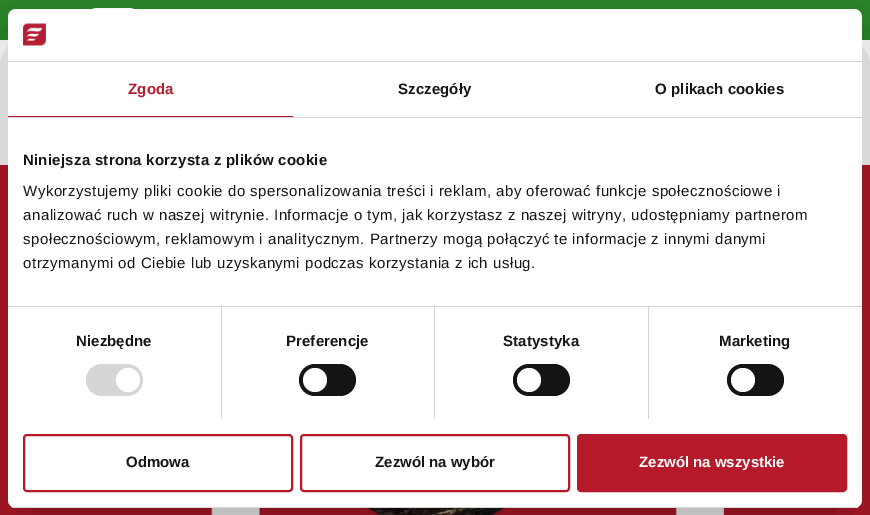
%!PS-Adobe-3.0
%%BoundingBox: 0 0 870 515
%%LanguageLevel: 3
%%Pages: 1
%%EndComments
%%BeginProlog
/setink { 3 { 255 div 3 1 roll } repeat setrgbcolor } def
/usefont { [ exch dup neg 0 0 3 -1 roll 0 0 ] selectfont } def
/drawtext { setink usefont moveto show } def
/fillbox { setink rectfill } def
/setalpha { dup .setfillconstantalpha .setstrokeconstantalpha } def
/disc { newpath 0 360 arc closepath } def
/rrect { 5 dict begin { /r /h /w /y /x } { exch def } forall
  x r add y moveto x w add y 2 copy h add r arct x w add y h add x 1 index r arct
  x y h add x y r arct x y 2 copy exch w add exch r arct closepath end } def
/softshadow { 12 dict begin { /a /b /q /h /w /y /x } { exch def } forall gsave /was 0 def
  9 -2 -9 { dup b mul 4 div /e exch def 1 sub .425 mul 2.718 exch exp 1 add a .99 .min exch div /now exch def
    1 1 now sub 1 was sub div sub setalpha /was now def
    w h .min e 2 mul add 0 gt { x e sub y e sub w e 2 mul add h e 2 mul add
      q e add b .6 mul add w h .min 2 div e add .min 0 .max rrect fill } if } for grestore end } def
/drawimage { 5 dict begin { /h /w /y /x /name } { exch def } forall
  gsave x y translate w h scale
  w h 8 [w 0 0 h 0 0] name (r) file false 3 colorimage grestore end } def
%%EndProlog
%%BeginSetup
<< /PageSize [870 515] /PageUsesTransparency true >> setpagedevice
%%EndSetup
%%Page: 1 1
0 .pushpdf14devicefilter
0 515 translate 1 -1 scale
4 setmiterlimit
0 0 870 515 255 255 255 fillbox
0 0 870 40 41 134 39 fillbox
255 255 255 setink
90 8 46 24 6 rrect fill
0 165 870 350 181 24 40 fillbox
(assets/img1.rgb) 211 508 514 7 drawimage
0 0 0 setink
8 41 854 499 8 34 0.3 softshadow
255 255 255 setink
8 9 854 499 8 rrect fill
8 61 854 1 214 214 214 fillbox
(assets/img2.rgb) 23 23 23 23 drawimage
8 117 854 1 214 214 214 fillbox
8 116 285 1 182 25 41 fillbox
/LiberationSans-Bold 15 usefont
128 94 moveto 0.1 0 (Zgoda) ashow
20 20 20 setink
398 94 moveto 0.1 0 (Szczegóły) ashow
655 94 moveto 0.1 0 (O plikach cookies) ashow
8 306 854 1 214 214 214 fillbox
20 20 20 setink
23 165 moveto 0.25 0 (Niniejsza strona korzysta z plików cookie) ashow
/LiberationSans-Regular 15 usefont
23 196 moveto 0.5 0 (Wykorzystujemy pliki cookie do spersonalizowania treści i reklam, aby oferować funkcje społecznościowe i) ashow
23 220 moveto 0.5 0 (analizować ruch w naszej witrynie. Informacje o tym, jak korzystasz z naszej witryny, udostępniamy partnerom) ashow
23 244 moveto 0.5 0 (społecznościowym, reklamowym i analitycznym. Partnerzy mogą połączyć te informacje z innymi danymi) ashow
23 268 moveto 0.5 0 (otrzymanymi od Ciebie lub uzyskanymi podczas korzystania z ich usług.) ashow
221 307 1 112 214 214 214 fillbox
/LiberationSans-Bold 15 usefont
20 20 20 setink
76 346 moveto 0.1 0 (Niezbędne) ashow
214 214 214 setink
86 364 57 32 16 rrect fill
255 255 255 setink
128 380 12 disc fill
434 307 1 112 214 214 214 fillbox
20 20 20 setink
286 346 moveto 0.1 0 (Preferencje) ashow
299 364 57 32 16 rrect fill
255 255 255 setink
315 380 12 disc fill
648 307 1 112 214 214 214 fillbox
20 20 20 setink
503 346 moveto 0.1 0 (Statystyka) ashow
513 364 57 32 16 rrect fill
255 255 255 setink
529 380 12 disc fill
20 20 20 setink
719 346 moveto 0.1 0 (Marketing) ashow
727 364 57 32 16 rrect fill
255 255 255 setink
743 380 12 disc fill
gsave
8 9 854 499 8 rrect clip newpath
8 507 854 1 214 214 214 fillbox
grestore
182 25 41 setink
2 setlinewidth
24 435 268 56 3 rrect stroke
(Odmowa) 126 467 /LiberationSans-Bold 15 20 20 20 drawtext
182 25 41 setink
301 435 268 56 3 rrect stroke
(Zezwól na wybór) 375 467 /LiberationSans-Bold 15 20 20 20 drawtext
182 25 41 setink
578 435 268 56 3 rrect gsave fill grestore
stroke
(Zezwól na wszystkie) 639 467 /LiberationSans-Bold 15 255 255 255 drawtext
.poppdf14devicefilter showpage
%%EOF
